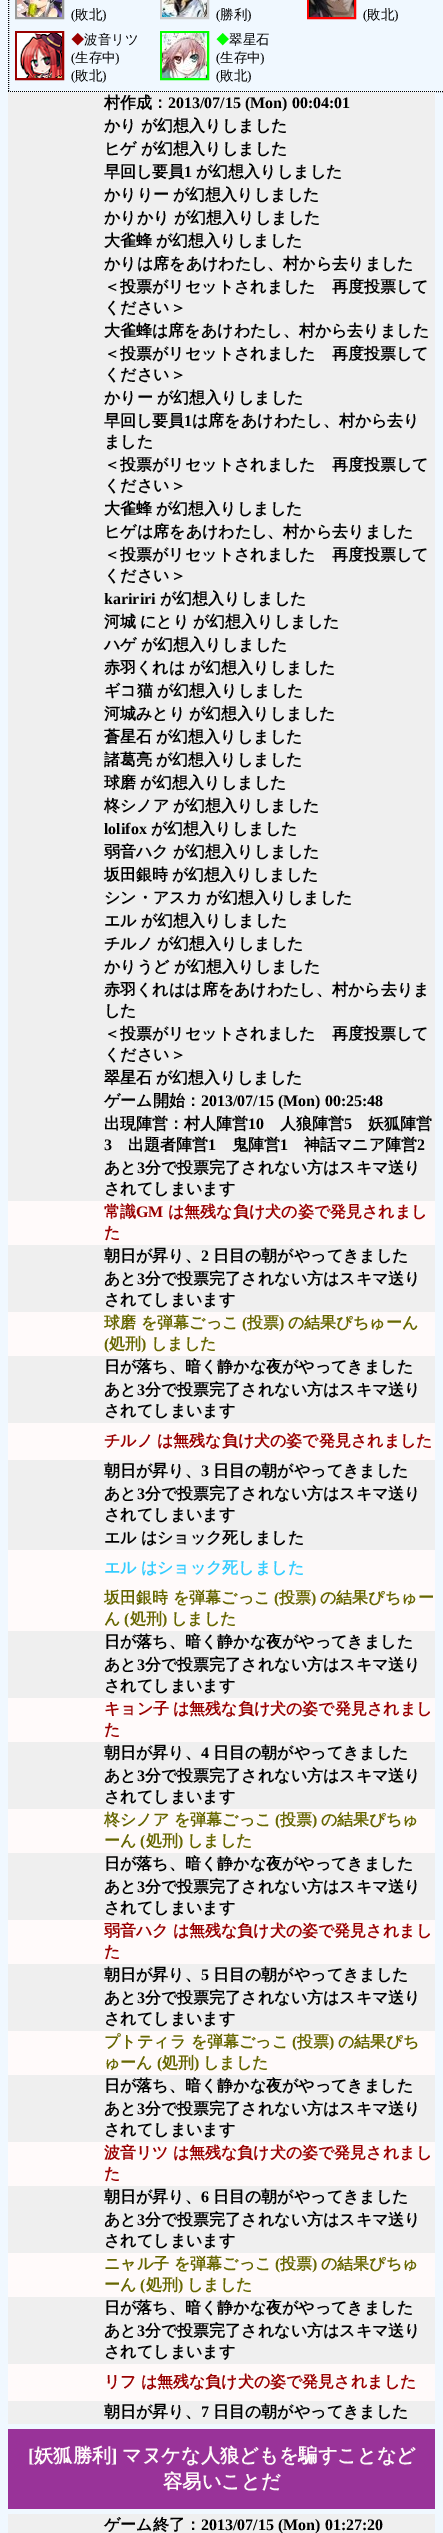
%!PS-Adobe-3.0
%%BoundingBox: 0 0 443 2533
%%LanguageLevel: 3
%%Pages: 1
%%EndComments
%%BeginProlog
/setink { 3 { 255 div 3 1 roll } repeat setrgbcolor } def
/usefont { [ exch dup neg 0 0 3 -1 roll 0 0 ] selectfont } def
/drawtext { setink usefont moveto show } def
/fillbox { setink rectfill } def
/drawimage { 5 dict begin { /h /w /y /x /name } { exch def } forall
  gsave x y translate w h scale
  w h 8 [w 0 0 h 0 0] name (r) file false 3 colorimage grestore end } def
%%EndProlog
%%BeginSetup
<< /PageSize [443 2533] >> setpagedevice
%%EndSetup
%%Page: 1 1
0 2533 translate 1 -1 scale
4 setmiterlimit
0 0 443 2533 240 248 255 fillbox
0 0 0 setink
[1 1] 0 setdash
8 91.5 moveto 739 91.5 lineto stroke
8.5 -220 moveto 8.5 92 lineto stroke
153 153 153 setink
2 setlinewidth
[] 0 setdash
16 -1 47 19 rectstroke
(assets/img1.rgb) 17 0 45 17 drawimage
(\() 71 19 /LiberationSerif-Regular 13.5 0 0 0 drawtext
(敗北) 75 19 /WenQuanYiZenHei-Medium 13.5 0 0 0 drawtext
(\)) 102 19 /LiberationSerif-Regular 13.5 0 0 0 drawtext
204 204 204 setink
161 -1 47 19 rectstroke
(assets/img2.rgb) 162 0 45 17 drawimage
(\() 216 19 /LiberationSerif-Regular 13.5 0 0 0 drawtext
(勝利) 220 19 /WenQuanYiZenHei-Medium 13.5 0 0 0 drawtext
(\)) 247 19 /LiberationSerif-Regular 13.5 0 0 0 drawtext
255 0 0 setink
308 -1 47 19 rectstroke
(assets/img3.rgb) 309 0 45 17 drawimage
(\() 363 19 /LiberationSerif-Regular 13.5 0 0 0 drawtext
(敗北) 367 19 /WenQuanYiZenHei-Medium 13.5 0 0 0 drawtext
(\)) 394 19 /LiberationSerif-Regular 13.5 0 0 0 drawtext
153 0 0 setink
16 32 47 47 rectstroke
(assets/img4.rgb) 17 33 45 45 drawimage
(◆) 71 44 /WenQuanYiZenHei-Medium 13.5 153 0 0 drawtext
(波音リツ) 84 44 /WenQuanYiZenHei-Medium 13.5 0 0 0 drawtext
(\() 71 62 /LiberationSerif-Regular 13.5 0 0 0 drawtext
(生存中) 75 62 /WenQuanYiZenHei-Medium 13.5 0 0 0 drawtext
(\)) 115 62 /LiberationSerif-Regular 13.5 0 0 0 drawtext
(\() 71 80 /LiberationSerif-Regular 13.5 0 0 0 drawtext
(敗北) 75 80 /WenQuanYiZenHei-Medium 13.5 0 0 0 drawtext
(\)) 102 80 /LiberationSerif-Regular 13.5 0 0 0 drawtext
0 255 0 setink
161 32 47 47 rectstroke
(assets/img5.rgb) 162 33 45 45 drawimage
(◆) 216 44 /WenQuanYiZenHei-Medium 13.5 0 255 0 drawtext
(翠星石) 229 44 /WenQuanYiZenHei-Medium 13.5 0 0 0 drawtext
(\() 216 62 /LiberationSerif-Regular 13.5 0 0 0 drawtext
(生存中) 220 62 /WenQuanYiZenHei-Medium 13.5 0 0 0 drawtext
(\)) 260 62 /LiberationSerif-Regular 13.5 0 0 0 drawtext
(\() 216 80 /LiberationSerif-Regular 13.5 0 0 0 drawtext
(敗北) 220 80 /WenQuanYiZenHei-Medium 13.5 0 0 0 drawtext
(\)) 247 80 /LiberationSerif-Regular 13.5 0 0 0 drawtext
8 92 427 1109 239 239 239 fillbox
(村作成：) 104 108 /WenQuanYiZenHei-Bold 16 0 0 0 drawtext
(2013/07/15 \(Mon\) 00:04:01) 168 108 /LiberationSerif-Bold 16 0 0 0 drawtext
(かり) 104 131 /WenQuanYiZenHei-Bold 16 0 0 0 drawtext
(が幻想入りしました) 141 131 /WenQuanYiZenHei-Bold 16 0 0 0 drawtext
(ヒゲ) 104 154 /WenQuanYiZenHei-Bold 16 0 0 0 drawtext
(が幻想入りしました) 141 154 /WenQuanYiZenHei-Bold 16 0 0 0 drawtext
(早回し要員) 104 177 /WenQuanYiZenHei-Bold 16 0 0 0 drawtext
(1) 184 177 /LiberationSerif-Bold 16 0 0 0 drawtext
(が幻想入りしました) 196 177 /WenQuanYiZenHei-Bold 16 0 0 0 drawtext
(かりりー) 104 200 /WenQuanYiZenHei-Bold 16 0 0 0 drawtext
(が幻想入りしました) 173 200 /WenQuanYiZenHei-Bold 16 0 0 0 drawtext
(かりかり) 104 223 /WenQuanYiZenHei-Bold 16 0 0 0 drawtext
(が幻想入りしました) 174 223 /WenQuanYiZenHei-Bold 16 0 0 0 drawtext
(大雀蜂) 104 246 /WenQuanYiZenHei-Bold 16 0 0 0 drawtext
(が幻想入りしました) 156 246 /WenQuanYiZenHei-Bold 16 0 0 0 drawtext
(かりは席をあけわたし、村から去りました) 104 269 /WenQuanYiZenHei-Bold 16 0 0 0 drawtext
(＜投票がリセットされました　再度投票して) 104 292 /WenQuanYiZenHei-Bold 16 0 0 0 drawtext
(ください＞) 104 313 /WenQuanYiZenHei-Bold 16 0 0 0 drawtext
(大雀蜂は席をあけわたし、村から去りました) 104 336 /WenQuanYiZenHei-Bold 16 0 0 0 drawtext
(＜投票がリセットされました　再度投票して) 104 359 /WenQuanYiZenHei-Bold 16 0 0 0 drawtext
(ください＞) 104 380 /WenQuanYiZenHei-Bold 16 0 0 0 drawtext
(かりー) 104 403 /WenQuanYiZenHei-Bold 16 0 0 0 drawtext
(が幻想入りしました) 157 403 /WenQuanYiZenHei-Bold 16 0 0 0 drawtext
(早回し要員) 104 426 /WenQuanYiZenHei-Bold 16 0 0 0 drawtext
(1) 184 426 /LiberationSerif-Bold 16 0 0 0 drawtext
(は席をあけわたし、村から去り) 192 426 /WenQuanYiZenHei-Bold 16 0 0 0 drawtext
(ました) 104 447 /WenQuanYiZenHei-Bold 16 0 0 0 drawtext
(＜投票がリセットされました　再度投票して) 104 470 /WenQuanYiZenHei-Bold 16 0 0 0 drawtext
(ください＞) 104 491 /WenQuanYiZenHei-Bold 16 0 0 0 drawtext
(大雀蜂) 104 514 /WenQuanYiZenHei-Bold 16 0 0 0 drawtext
(が幻想入りしました) 156 514 /WenQuanYiZenHei-Bold 16 0 0 0 drawtext
(ヒゲは席をあけわたし、村から去りました) 104 537 /WenQuanYiZenHei-Bold 16 0 0 0 drawtext
(＜投票がリセットされました　再度投票して) 104 560 /WenQuanYiZenHei-Bold 16 0 0 0 drawtext
(ください＞) 104 581 /WenQuanYiZenHei-Bold 16 0 0 0 drawtext
(kaririri) 104 604 /LiberationSerif-Bold 16 0 0 0 drawtext
(が幻想入りしました) 160 604 /WenQuanYiZenHei-Bold 16 0 0 0 drawtext
104 627 moveto -1 0 32 (河城 にとり) widthshow
(が幻想入りしました) 193 627 /WenQuanYiZenHei-Bold 16 0 0 0 drawtext
(ハゲ) 104 650 /WenQuanYiZenHei-Bold 16 0 0 0 drawtext
(が幻想入りしました) 141 650 /WenQuanYiZenHei-Bold 16 0 0 0 drawtext
(赤羽くれは) 104 673 /WenQuanYiZenHei-Bold 16 0 0 0 drawtext
(が幻想入りしました) 189 673 /WenQuanYiZenHei-Bold 16 0 0 0 drawtext
(ギコ猫) 104 696 /WenQuanYiZenHei-Bold 16 0 0 0 drawtext
(が幻想入りしました) 157 696 /WenQuanYiZenHei-Bold 16 0 0 0 drawtext
(河城みとり) 104 719 /WenQuanYiZenHei-Bold 16 0 0 0 drawtext
(が幻想入りしました) 189 719 /WenQuanYiZenHei-Bold 16 0 0 0 drawtext
(蒼星石) 104 742 /WenQuanYiZenHei-Bold 16 0 0 0 drawtext
(が幻想入りしました) 156 742 /WenQuanYiZenHei-Bold 16 0 0 0 drawtext
(諸葛亮) 104 765 /WenQuanYiZenHei-Bold 16 0 0 0 drawtext
(が幻想入りしました) 156 765 /WenQuanYiZenHei-Bold 16 0 0 0 drawtext
(球磨) 104 788 /WenQuanYiZenHei-Bold 16 0 0 0 drawtext
(が幻想入りしました) 140 788 /WenQuanYiZenHei-Bold 16 0 0 0 drawtext
(柊シノア) 104 811 /WenQuanYiZenHei-Bold 16 0 0 0 drawtext
(が幻想入りしました) 173 811 /WenQuanYiZenHei-Bold 16 0 0 0 drawtext
(lolifox) 104 834 /LiberationSerif-Bold 16 0 0 0 drawtext
(が幻想入りしました) 151 834 /WenQuanYiZenHei-Bold 16 0 0 0 drawtext
(弱音ハク) 104 857 /WenQuanYiZenHei-Bold 16 0 0 0 drawtext
(が幻想入りしました) 173 857 /WenQuanYiZenHei-Bold 16 0 0 0 drawtext
(坂田銀時) 104 880 /WenQuanYiZenHei-Bold 16 0 0 0 drawtext
(が幻想入りしました) 172 880 /WenQuanYiZenHei-Bold 16 0 0 0 drawtext
(シン・アスカ) 104 903 /WenQuanYiZenHei-Bold 16 0 0 0 drawtext
(が幻想入りしました) 206 903 /WenQuanYiZenHei-Bold 16 0 0 0 drawtext
(エル) 104 926 /WenQuanYiZenHei-Bold 16 0 0 0 drawtext
(が幻想入りしました) 141 926 /WenQuanYiZenHei-Bold 16 0 0 0 drawtext
(チルノ) 104 949 /WenQuanYiZenHei-Bold 16 0 0 0 drawtext
(が幻想入りしました) 157 949 /WenQuanYiZenHei-Bold 16 0 0 0 drawtext
(かりうど) 104 972 /WenQuanYiZenHei-Bold 16 0 0 0 drawtext
(が幻想入りしました) 174 972 /WenQuanYiZenHei-Bold 16 0 0 0 drawtext
(赤羽くれはは席をあけわたし、村から去りま) 104 995 /WenQuanYiZenHei-Bold 16 0 0 0 drawtext
(した) 104 1016 /WenQuanYiZenHei-Bold 16 0 0 0 drawtext
(＜投票がリセットされました　再度投票して) 104 1039 /WenQuanYiZenHei-Bold 16 0 0 0 drawtext
(ください＞) 104 1060 /WenQuanYiZenHei-Bold 16 0 0 0 drawtext
(翠星石) 104 1083 /WenQuanYiZenHei-Bold 16 0 0 0 drawtext
(が幻想入りしました) 156 1083 /WenQuanYiZenHei-Bold 16 0 0 0 drawtext
(ゲーム開始：) 104 1106 /WenQuanYiZenHei-Bold 16 0 0 0 drawtext
(2013/07/15 \(Mon\) 00:25:48) 201 1106 /LiberationSerif-Bold 16 0 0 0 drawtext
(出現陣営：村人陣営) 104 1129 /WenQuanYiZenHei-Bold 16 0 0 0 drawtext
(10) 248 1129 /LiberationSerif-Bold 16 0 0 0 drawtext
(人狼陣営) 280 1129 /WenQuanYiZenHei-Bold 16 0 0 0 drawtext
(5) 344 1129 /LiberationSerif-Bold 16 0 0 0 drawtext
(妖狐陣営) 368 1129 /WenQuanYiZenHei-Bold 16 0 0 0 drawtext
(3) 104 1150 /LiberationSerif-Bold 16 0 0 0 drawtext
(出題者陣営) 128 1150 /WenQuanYiZenHei-Bold 16 0 0 0 drawtext
(1) 208 1150 /LiberationSerif-Bold 16 0 0 0 drawtext
(鬼陣営) 232 1150 /WenQuanYiZenHei-Bold 16 0 0 0 drawtext
(1) 280 1150 /LiberationSerif-Bold 16 0 0 0 drawtext
(神話マニア陣営) 304 1150 /WenQuanYiZenHei-Bold 16 0 0 0 drawtext
(2) 417 1150 /LiberationSerif-Bold 16 0 0 0 drawtext
(あと) 104 1173 /WenQuanYiZenHei-Bold 16 0 0 0 drawtext
(3) 137 1173 /LiberationSerif-Bold 16 0 0 0 drawtext
(分で投票完了されない方はスキマ送り) 145 1173 /WenQuanYiZenHei-Bold 16 0 0 0 drawtext
(されてしまいます) 104 1194 /WenQuanYiZenHei-Bold 16 0 0 0 drawtext
8 1201 427 44 255 250 250 fillbox
(常識) 104 1217 /WenQuanYiZenHei-Bold 16 153 0 0 drawtext
(GM) 136 1217 /LiberationSerif-Bold 16 153 0 0 drawtext
(は無残な負け犬の姿で発見されまし) 168 1217 /WenQuanYiZenHei-Bold 16 153 0 0 drawtext
(た) 104 1238 /WenQuanYiZenHei-Bold 16 153 0 0 drawtext
8 1245 427 67 239 239 239 fillbox
(朝日が昇り、) 104 1261 /WenQuanYiZenHei-Bold 16 0 0 0 drawtext
(2) 201 1261 /LiberationSerif-Bold 16 0 0 0 drawtext
(日目の朝がやってきました) 213 1261 /WenQuanYiZenHei-Bold 16 0 0 0 drawtext
(あと) 104 1284 /WenQuanYiZenHei-Bold 16 0 0 0 drawtext
(3) 137 1284 /LiberationSerif-Bold 16 0 0 0 drawtext
(分で投票完了されない方はスキマ送り) 145 1284 /WenQuanYiZenHei-Bold 16 0 0 0 drawtext
(されてしまいます) 104 1305 /WenQuanYiZenHei-Bold 16 0 0 0 drawtext
8 1312 427 44 255 250 250 fillbox
(球磨 を弾幕ごっこ) 104 1328 /WenQuanYiZenHei-Bold 16 102 102 0 drawtext
(\() 242 1328 /LiberationSerif-Bold 16 102 102 0 drawtext
(投票) 247 1328 /WenQuanYiZenHei-Bold 16 102 102 0 drawtext
(\)) 279 1328 /LiberationSerif-Bold 16 102 102 0 drawtext
(の結果ぴちゅーん) 288 1328 /WenQuanYiZenHei-Bold 16 102 102 0 drawtext
(\() 104 1349 /LiberationSerif-Bold 16 102 102 0 drawtext
(処刑) 109 1349 /WenQuanYiZenHei-Bold 16 102 102 0 drawtext
(\)) 141 1349 /LiberationSerif-Bold 16 102 102 0 drawtext
(しました) 151 1349 /WenQuanYiZenHei-Bold 16 102 102 0 drawtext
8 1356 427 67 239 239 239 fillbox
(日が落ち、暗く静かな夜がやってきました) 104 1372 /WenQuanYiZenHei-Bold 16 0 0 0 drawtext
(あと) 104 1395 /WenQuanYiZenHei-Bold 16 0 0 0 drawtext
(3) 137 1395 /LiberationSerif-Bold 16 0 0 0 drawtext
(分で投票完了されない方はスキマ送り) 145 1395 /WenQuanYiZenHei-Bold 16 0 0 0 drawtext
(されてしまいます) 104 1416 /WenQuanYiZenHei-Bold 16 0 0 0 drawtext
8 1423 427 37 255 250 250 fillbox
153 0 0 setink
104 1446 moveto -1 0 32 (チルノ は無残な負け犬の姿で発見されました) widthshow
8 1460 427 90 239 239 239 fillbox
(朝日が昇り、) 104 1476 /WenQuanYiZenHei-Bold 16 0 0 0 drawtext
(3) 201 1476 /LiberationSerif-Bold 16 0 0 0 drawtext
(日目の朝がやってきました) 213 1476 /WenQuanYiZenHei-Bold 16 0 0 0 drawtext
(あと) 104 1499 /WenQuanYiZenHei-Bold 16 0 0 0 drawtext
(3) 137 1499 /LiberationSerif-Bold 16 0 0 0 drawtext
(分で投票完了されない方はスキマ送り) 145 1499 /WenQuanYiZenHei-Bold 16 0 0 0 drawtext
(されてしまいます) 104 1520 /WenQuanYiZenHei-Bold 16 0 0 0 drawtext
104 1543 moveto -1 0 32 (エル はショック死しました) widthshow
8 1550 427 81 255 250 250 fillbox
51 204 255 setink
104 1573 moveto -1 0 32 (エル はショック死しました) widthshow
(坂田銀時 を弾幕ごっこ) 104 1603 /WenQuanYiZenHei-Bold 16 102 102 0 drawtext
(\() 274 1603 /LiberationSerif-Bold 16 102 102 0 drawtext
(投票) 279 1603 /WenQuanYiZenHei-Bold 16 102 102 0 drawtext
(\)) 311 1603 /LiberationSerif-Bold 16 102 102 0 drawtext
(の結果ぴちゅー) 320 1603 /WenQuanYiZenHei-Bold 16 102 102 0 drawtext
(ん) 104 1624 /WenQuanYiZenHei-Bold 16 102 102 0 drawtext
(\() 124 1624 /LiberationSerif-Bold 16 102 102 0 drawtext
(処刑) 130 1624 /WenQuanYiZenHei-Bold 16 102 102 0 drawtext
(\)) 162 1624 /LiberationSerif-Bold 16 102 102 0 drawtext
(しました) 171 1624 /WenQuanYiZenHei-Bold 16 102 102 0 drawtext
8 1631 427 67 239 239 239 fillbox
(日が落ち、暗く静かな夜がやってきました) 104 1647 /WenQuanYiZenHei-Bold 16 0 0 0 drawtext
(あと) 104 1670 /WenQuanYiZenHei-Bold 16 0 0 0 drawtext
(3) 137 1670 /LiberationSerif-Bold 16 0 0 0 drawtext
(分で投票完了されない方はスキマ送り) 145 1670 /WenQuanYiZenHei-Bold 16 0 0 0 drawtext
(されてしまいます) 104 1691 /WenQuanYiZenHei-Bold 16 0 0 0 drawtext
8 1698 427 44 255 250 250 fillbox
153 0 0 setink
104 1714 moveto -1 0 32 (キョン子 は無残な負け犬の姿で発見されまし) widthshow
(た) 104 1735 /WenQuanYiZenHei-Bold 16 153 0 0 drawtext
8 1742 427 67 239 239 239 fillbox
(朝日が昇り、) 104 1758 /WenQuanYiZenHei-Bold 16 0 0 0 drawtext
(4) 201 1758 /LiberationSerif-Bold 16 0 0 0 drawtext
(日目の朝がやってきました) 213 1758 /WenQuanYiZenHei-Bold 16 0 0 0 drawtext
(あと) 104 1781 /WenQuanYiZenHei-Bold 16 0 0 0 drawtext
(3) 137 1781 /LiberationSerif-Bold 16 0 0 0 drawtext
(分で投票完了されない方はスキマ送り) 145 1781 /WenQuanYiZenHei-Bold 16 0 0 0 drawtext
(されてしまいます) 104 1802 /WenQuanYiZenHei-Bold 16 0 0 0 drawtext
8 1809 427 44 255 250 250 fillbox
(柊シノア を弾幕ごっこ) 104 1825 /WenQuanYiZenHei-Bold 16 102 102 0 drawtext
(\() 275 1825 /LiberationSerif-Bold 16 102 102 0 drawtext
(投票) 280 1825 /WenQuanYiZenHei-Bold 16 102 102 0 drawtext
(\)) 312 1825 /LiberationSerif-Bold 16 102 102 0 drawtext
(の結果ぴちゅ) 321 1825 /WenQuanYiZenHei-Bold 16 102 102 0 drawtext
(ーん) 104 1846 /WenQuanYiZenHei-Bold 16 102 102 0 drawtext
(\() 140 1846 /LiberationSerif-Bold 16 102 102 0 drawtext
(処刑) 146 1846 /WenQuanYiZenHei-Bold 16 102 102 0 drawtext
(\)) 178 1846 /LiberationSerif-Bold 16 102 102 0 drawtext
(しました) 187 1846 /WenQuanYiZenHei-Bold 16 102 102 0 drawtext
8 1853 427 67 239 239 239 fillbox
(日が落ち、暗く静かな夜がやってきました) 104 1869 /WenQuanYiZenHei-Bold 16 0 0 0 drawtext
(あと) 104 1892 /WenQuanYiZenHei-Bold 16 0 0 0 drawtext
(3) 137 1892 /LiberationSerif-Bold 16 0 0 0 drawtext
(分で投票完了されない方はスキマ送り) 145 1892 /WenQuanYiZenHei-Bold 16 0 0 0 drawtext
(されてしまいます) 104 1913 /WenQuanYiZenHei-Bold 16 0 0 0 drawtext
8 1920 427 44 255 250 250 fillbox
153 0 0 setink
104 1936 moveto -1 0 32 (弱音ハク は無残な負け犬の姿で発見されまし) widthshow
(た) 104 1957 /WenQuanYiZenHei-Bold 16 153 0 0 drawtext
8 1964 427 67 239 239 239 fillbox
(朝日が昇り、) 104 1980 /WenQuanYiZenHei-Bold 16 0 0 0 drawtext
(5) 201 1980 /LiberationSerif-Bold 16 0 0 0 drawtext
(日目の朝がやってきました) 213 1980 /WenQuanYiZenHei-Bold 16 0 0 0 drawtext
(あと) 104 2003 /WenQuanYiZenHei-Bold 16 0 0 0 drawtext
(3) 137 2003 /LiberationSerif-Bold 16 0 0 0 drawtext
(分で投票完了されない方はスキマ送り) 145 2003 /WenQuanYiZenHei-Bold 16 0 0 0 drawtext
(されてしまいます) 104 2024 /WenQuanYiZenHei-Bold 16 0 0 0 drawtext
8 2031 427 44 255 250 250 fillbox
(プトティラ を弾幕ごっこ) 104 2047 /WenQuanYiZenHei-Bold 16 102 102 0 drawtext
(\() 292 2047 /LiberationSerif-Bold 16 102 102 0 drawtext
(投票) 297 2047 /WenQuanYiZenHei-Bold 16 102 102 0 drawtext
(\)) 329 2047 /LiberationSerif-Bold 16 102 102 0 drawtext
(の結果ぴち) 338 2047 /WenQuanYiZenHei-Bold 16 102 102 0 drawtext
(ゅーん) 104 2068 /WenQuanYiZenHei-Bold 16 102 102 0 drawtext
(\() 157 2068 /LiberationSerif-Bold 16 102 102 0 drawtext
(処刑) 162 2068 /WenQuanYiZenHei-Bold 16 102 102 0 drawtext
(\)) 194 2068 /LiberationSerif-Bold 16 102 102 0 drawtext
(しました) 203 2068 /WenQuanYiZenHei-Bold 16 102 102 0 drawtext
8 2075 427 67 239 239 239 fillbox
(日が落ち、暗く静かな夜がやってきました) 104 2091 /WenQuanYiZenHei-Bold 16 0 0 0 drawtext
(あと) 104 2114 /WenQuanYiZenHei-Bold 16 0 0 0 drawtext
(3) 137 2114 /LiberationSerif-Bold 16 0 0 0 drawtext
(分で投票完了されない方はスキマ送り) 145 2114 /WenQuanYiZenHei-Bold 16 0 0 0 drawtext
(されてしまいます) 104 2135 /WenQuanYiZenHei-Bold 16 0 0 0 drawtext
8 2142 427 44 255 250 250 fillbox
153 0 0 setink
104 2158 moveto -1 0 32 (波音リツ は無残な負け犬の姿で発見されまし) widthshow
(た) 104 2179 /WenQuanYiZenHei-Bold 16 153 0 0 drawtext
8 2186 427 67 239 239 239 fillbox
(朝日が昇り、) 104 2202 /WenQuanYiZenHei-Bold 16 0 0 0 drawtext
(6) 201 2202 /LiberationSerif-Bold 16 0 0 0 drawtext
(日目の朝がやってきました) 213 2202 /WenQuanYiZenHei-Bold 16 0 0 0 drawtext
(あと) 104 2225 /WenQuanYiZenHei-Bold 16 0 0 0 drawtext
(3) 137 2225 /LiberationSerif-Bold 16 0 0 0 drawtext
(分で投票完了されない方はスキマ送り) 145 2225 /WenQuanYiZenHei-Bold 16 0 0 0 drawtext
(されてしまいます) 104 2246 /WenQuanYiZenHei-Bold 16 0 0 0 drawtext
8 2253 427 44 255 250 250 fillbox
(ニャル子 を弾幕ごっこ) 104 2269 /WenQuanYiZenHei-Bold 16 102 102 0 drawtext
(\() 275 2269 /LiberationSerif-Bold 16 102 102 0 drawtext
(投票) 280 2269 /WenQuanYiZenHei-Bold 16 102 102 0 drawtext
(\)) 312 2269 /LiberationSerif-Bold 16 102 102 0 drawtext
(の結果ぴちゅ) 321 2269 /WenQuanYiZenHei-Bold 16 102 102 0 drawtext
(ーん) 104 2290 /WenQuanYiZenHei-Bold 16 102 102 0 drawtext
(\() 140 2290 /LiberationSerif-Bold 16 102 102 0 drawtext
(処刑) 146 2290 /WenQuanYiZenHei-Bold 16 102 102 0 drawtext
(\)) 178 2290 /LiberationSerif-Bold 16 102 102 0 drawtext
(しました) 187 2290 /WenQuanYiZenHei-Bold 16 102 102 0 drawtext
8 2297 427 67 239 239 239 fillbox
(日が落ち、暗く静かな夜がやってきました) 104 2313 /WenQuanYiZenHei-Bold 16 0 0 0 drawtext
(あと) 104 2336 /WenQuanYiZenHei-Bold 16 0 0 0 drawtext
(3) 137 2336 /LiberationSerif-Bold 16 0 0 0 drawtext
(分で投票完了されない方はスキマ送り) 145 2336 /WenQuanYiZenHei-Bold 16 0 0 0 drawtext
(されてしまいます) 104 2357 /WenQuanYiZenHei-Bold 16 0 0 0 drawtext
8 2364 427 37 255 250 250 fillbox
153 0 0 setink
104 2387 moveto -1 0 32 (リフ は無残な負け犬の姿で発見されました) widthshow
8 2401 427 23 239 239 239 fillbox
(朝日が昇り、) 104 2417 /WenQuanYiZenHei-Bold 16 0 0 0 drawtext
(7) 201 2417 /LiberationSerif-Bold 16 0 0 0 drawtext
(日目の朝がやってきました) 213 2417 /WenQuanYiZenHei-Bold 16 0 0 0 drawtext
8 2429 427 80 153 51 153 fillbox
([) 28 2462 /LiberationSerif-Bold 19.25 255 250 250 drawtext
(妖狐勝利) 34 2462 /WenQuanYiZenHei-Bold 19.25 255 250 250 drawtext
(]) 111 2462 /LiberationSerif-Bold 19.25 255 250 250 drawtext
(マヌケな人狼どもを騙すことなど) 122 2462 /WenQuanYiZenHei-Bold 19.25 255 250 250 drawtext
(容易いことだ) 163 2488 /WenQuanYiZenHei-Bold 19.25 255 250 250 drawtext
8 2514 427 19 239 239 239 fillbox
(ゲーム終了：) 104 2530 /WenQuanYiZenHei-Bold 16 0 0 0 drawtext
(2013/07/15 \(Mon\) 01:27:20) 201 2530 /LiberationSerif-Bold 16 0 0 0 drawtext
showpage
%%EOF
